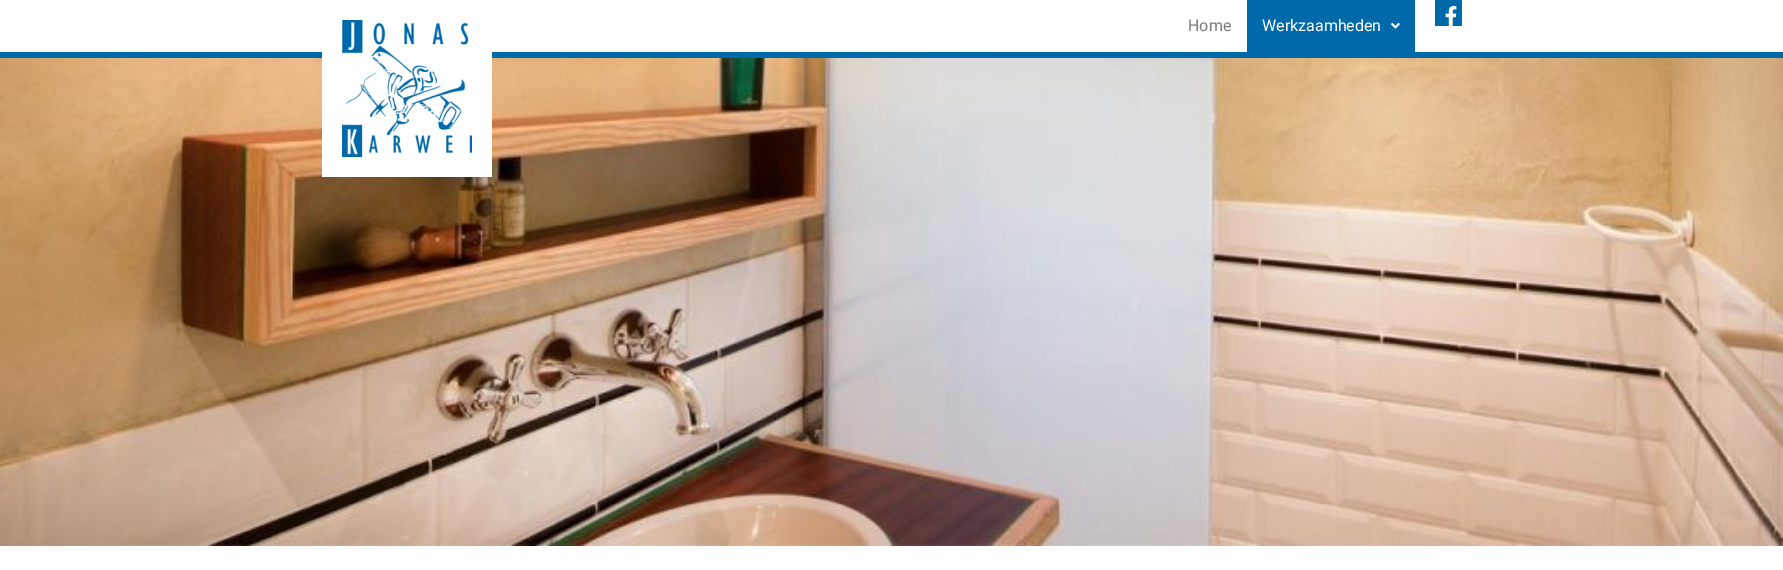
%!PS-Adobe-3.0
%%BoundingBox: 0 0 1783 570
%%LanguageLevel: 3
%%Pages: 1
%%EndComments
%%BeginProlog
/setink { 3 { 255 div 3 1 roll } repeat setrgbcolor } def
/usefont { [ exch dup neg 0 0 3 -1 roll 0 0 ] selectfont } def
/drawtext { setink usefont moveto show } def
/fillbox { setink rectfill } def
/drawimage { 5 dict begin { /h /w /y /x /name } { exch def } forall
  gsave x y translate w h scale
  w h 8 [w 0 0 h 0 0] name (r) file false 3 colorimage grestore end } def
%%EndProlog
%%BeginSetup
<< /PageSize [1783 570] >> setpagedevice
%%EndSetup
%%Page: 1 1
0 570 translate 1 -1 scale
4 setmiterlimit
0 0 1783 570 255 255 255 fillbox
0 52 1783 6 0 105 170 fillbox
(assets/img4.rgb) 0 58 1783 488 drawimage
322 52 170 125 255 255 255 fillbox
(assets/img1.rgb) 342 20 130 137 drawimage
(Home) 1188 31 /Roboto-Regular 16 122 122 122 drawtext
1247 0 168 52 0 105 170 fillbox
(Werkzaamheden) 1262 31 /Roboto-Regular 16 255 255 255 drawtext
(assets/img2.rgb) 1391 23 9 6 drawimage
1435 0 27 26 0 105 170 fillbox
(assets/img3.rgb) 1445 6 12 20 drawimage
showpage
%%EOF
